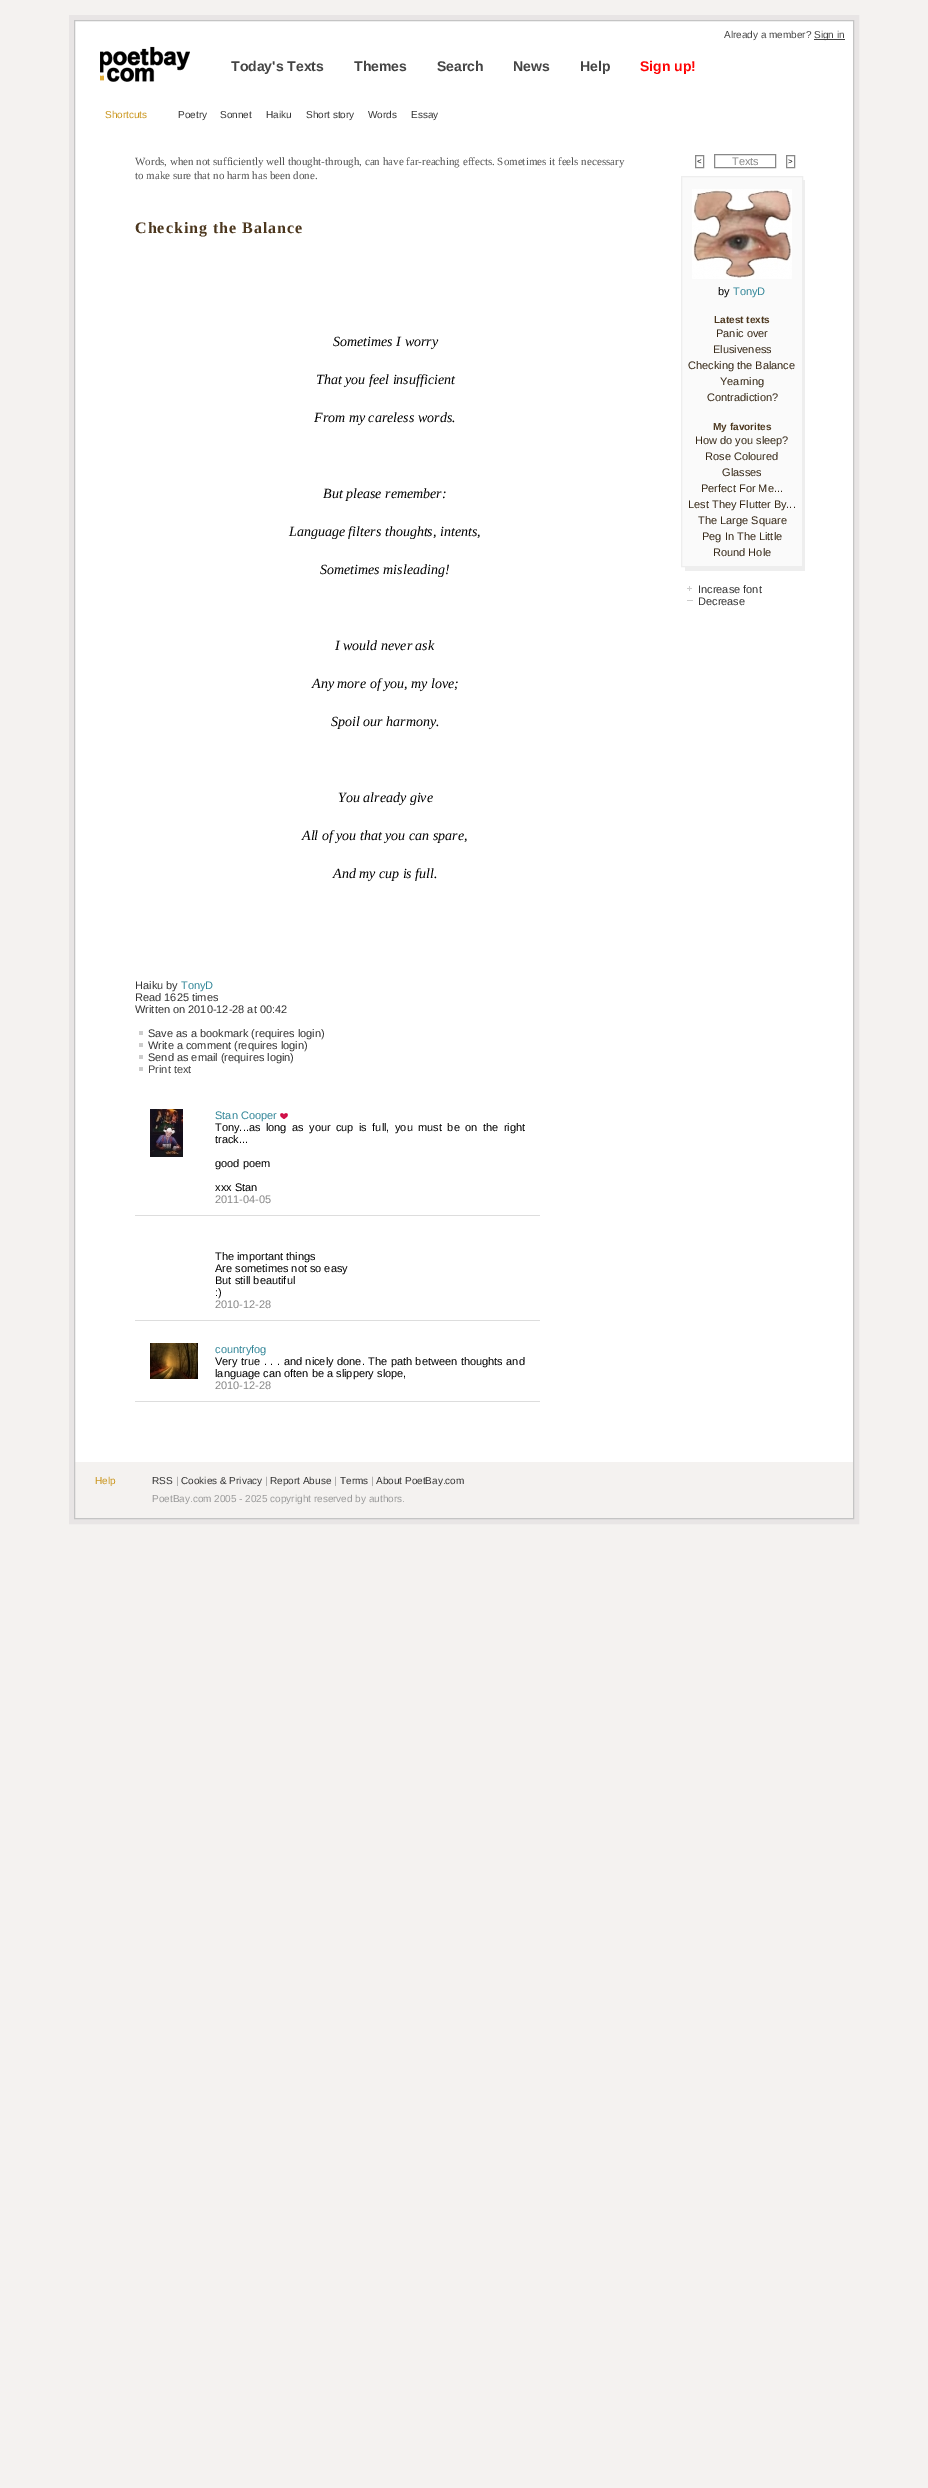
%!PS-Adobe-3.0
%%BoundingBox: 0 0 928 2488
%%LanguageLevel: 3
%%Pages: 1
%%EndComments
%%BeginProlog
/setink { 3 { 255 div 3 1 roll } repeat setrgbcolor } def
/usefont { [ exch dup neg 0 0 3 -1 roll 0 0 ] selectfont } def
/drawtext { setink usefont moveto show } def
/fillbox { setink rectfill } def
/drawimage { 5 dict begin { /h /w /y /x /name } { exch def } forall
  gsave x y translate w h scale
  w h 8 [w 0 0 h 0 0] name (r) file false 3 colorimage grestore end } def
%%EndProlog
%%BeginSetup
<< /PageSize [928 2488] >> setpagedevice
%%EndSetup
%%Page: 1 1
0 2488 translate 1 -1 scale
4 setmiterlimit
0 0 928 2488 244 242 240 fillbox
232 229 229 setink
5 setlinewidth
71.5 17.5 785 1504 rectstroke
75 21 778 1441 255 255 255 fillbox
196 196 196 setink
1 setlinewidth
74.5 20.5 779 1498 rectstroke
(Already a member?) 724 38 /LiberationSans-Regular 10 68 68 68 drawtext
814 39 31 1 68 68 68 fillbox
(Sign in) 814 38 /LiberationSans-Regular 10 68 68 68 drawtext
(assets/img1.rgb) 100 46 90 36 drawimage
(Today's Texts) 231 71 /LiberationSans-Bold 14 68 68 68 drawtext
(Themes) 354 71 /LiberationSans-Bold 14 68 68 68 drawtext
(Search) 437 71 /LiberationSans-Bold 14 68 68 68 drawtext
(News) 513 71 /LiberationSans-Bold 14 68 68 68 drawtext
(Help) 580 71 /LiberationSans-Bold 14 68 68 68 drawtext
(Sign up!) 640 71 /LiberationSans-Bold 14 255 4 4 drawtext
(Shortcuts) 105 118 /LiberationSans-Regular 10 202 149 27 drawtext
(Poetry) 178 118 /LiberationSans-Regular 10 51 51 51 drawtext
(Sonnet) 220 118 /LiberationSans-Regular 10 51 51 51 drawtext
(Haiku) 266 118 /LiberationSans-Regular 10 51 51 51 drawtext
(Short story) 306 118 /LiberationSans-Regular 10 51 51 51 drawtext
(Words) 368 118 /LiberationSans-Regular 10 51 51 51 drawtext
(Essay) 411 118 /LiberationSans-Regular 10 51 51 51 drawtext
(Words, when not sufficiently well thought-through, can have far-reaching effects. Sometimes it feels necessary) 135 165 /LiberationSerif-Regular 11 85 85 85 drawtext
(to make sure that no harm has been done.) 135 179 /LiberationSerif-Regular 11 85 85 85 drawtext
/LiberationSerif-Bold 16 usefont
76 55 30 setink
135 233 moveto 1 0 (Checking the Balance) ashow
(Sometimes I worry) 333 346 /LiberationSerif-Italic 14 0 0 0 drawtext
(That you feel insufficient) 316 384 /LiberationSerif-Italic 14 0 0 0 drawtext
(From my careless words.) 314 422 /LiberationSerif-Italic 14 0 0 0 drawtext
(But please remember:) 323 498 /LiberationSerif-Italic 14 0 0 0 drawtext
(Language filters thoughts, intents,) 289 536 /LiberationSerif-Italic 14 0 0 0 drawtext
(Sometimes misleading!) 320 574 /LiberationSerif-Italic 14 0 0 0 drawtext
(I would never ask) 335 650 /LiberationSerif-Italic 14 0 0 0 drawtext
(Any more of you, my love;) 312 688 /LiberationSerif-Italic 14 0 0 0 drawtext
(Spoil our harmony.) 331 726 /LiberationSerif-Italic 14 0 0 0 drawtext
(You already give) 338 802 /LiberationSerif-Italic 14 0 0 0 drawtext
(All of you that you can spare,) 302 840 /LiberationSerif-Italic 14 0 0 0 drawtext
(And my cup is full.) 333 878 /LiberationSerif-Italic 14 0 0 0 drawtext
(Haiku by) 135 989 /LiberationSans-Regular 11 51 51 51 drawtext
(TonyD) 181 989 /LiberationSans-Regular 11 51 135 153 drawtext
(Read 1625 times) 135 1001 /LiberationSans-Regular 11 51 51 51 drawtext
(Written on 2010-12-28 at 00:42) 135 1013 /LiberationSans-Regular 11 51 51 51 drawtext
(Save as a bookmark \(requires login\)) 148 1037 /LiberationSans-Regular 11 51 51 51 drawtext
139 1031 4 4 204 204 204 fillbox
(Write a comment \(requires login\)) 148 1049 /LiberationSans-Regular 11 51 51 51 drawtext
139 1043 4 4 204 204 204 fillbox
(Send as email \(requires login\)) 148 1061 /LiberationSans-Regular 11 51 51 51 drawtext
139 1055 4 4 204 204 204 fillbox
(Print text) 148 1073 /LiberationSans-Regular 11 68 68 68 drawtext
139 1067 4 4 204 204 204 fillbox
135 1215 405 1 221 221 221 fillbox
(assets/img2.rgb) 150 1109 33 48 drawimage
(Stan Cooper) 215 1119 /LiberationSans-Regular 11 51 135 153 drawtext
(assets/img3.rgb) 280 1113 8 6 drawimage
0 0 0 setink
215 1131 moveto 2.4 0 32 (Tony...as long as your cup is full, you must be on the right) widthshow
(track...) 215 1143 /LiberationSans-Regular 11 0 0 0 drawtext
(good poem) 215 1167 /LiberationSans-Regular 11 0 0 0 drawtext
(xxx Stan) 215 1191 /LiberationSans-Regular 11 0 0 0 drawtext
(2011-04-05) 215 1203 /LiberationSans-Regular 11 136 136 136 drawtext
135 1320 405 1 221 221 221 fillbox
(The important things) 215 1260 /LiberationSans-Regular 11 0 0 0 drawtext
(Are sometimes not so easy) 215 1272 /LiberationSans-Regular 11 0 0 0 drawtext
(But still beautiful) 215 1284 /LiberationSans-Regular 11 0 0 0 drawtext
(:\)) 215 1296 /LiberationSans-Regular 11 0 0 0 drawtext
(2010-12-28) 215 1308 /LiberationSans-Regular 11 136 136 136 drawtext
135 1401 405 1 221 221 221 fillbox
(assets/img4.rgb) 150 1343 48 36 drawimage
(countryfog) 215 1353 /LiberationSans-Regular 11 51 135 153 drawtext
0 0 0 setink
215 1365 moveto 0.5 0 32 (Very true . . . and nicely done.) widthshow
368 1365 moveto 0.5 0 32 (The path between thoughts and) widthshow
(language can often be a slippery slope,) 215 1377 /LiberationSans-Regular 11 0 0 0 drawtext
(2010-12-28) 215 1389 /LiberationSans-Regular 11 136 136 136 drawtext
695.5 155.5 8 12 rectstroke
(<) 697 164 /LiberationSans-Regular 8 0 0 0 drawtext
136 136 136 setink
714.5 154.5 61 13 rectstroke
(Texts) 732 165 /LiberationSans-Regular 11 136 136 136 drawtext
786.5 155.5 8 12 rectstroke
(>) 788 164 /LiberationSans-Regular 8 0 0 0 drawtext
685 180 120 391 238 238 238 fillbox
250 250 250 setink
681.5 176.5 moveto 802.5 176.5 lineto 802.5 566.5 lineto 681.5 566.5 lineto closepath gsave fill grestore
238 238 238 setink
stroke
(assets/img5.rgb) 692 189 100 90 drawimage
(by) 718 295 /LiberationSans-Regular 11 0 0 0 drawtext
(TonyD) 733 295 /LiberationSans-Regular 11 51 135 153 drawtext
(Latest texts) 714 323 /LiberationSans-Bold 10 76 55 30 drawtext
(Panic over) 716 337 /LiberationSans-Regular 11 53 39 22 drawtext
(Elusiveness) 713 353 /LiberationSans-Regular 11 53 39 22 drawtext
(Checking the Balance) 688 369 /LiberationSans-Regular 11 53 39 22 drawtext
(Yearning) 720 385 /LiberationSans-Regular 11 53 39 22 drawtext
(Contradiction?) 707 401 /LiberationSans-Regular 11 53 39 22 drawtext
(My favorites) 713 430 /LiberationSans-Bold 10 76 55 30 drawtext
(How do you sleep?) 695 444 /LiberationSans-Regular 11 53 39 22 drawtext
(Rose Coloured) 705 460 /LiberationSans-Regular 11 53 39 22 drawtext
(Glasses) 722 476 /LiberationSans-Regular 11 53 39 22 drawtext
(Perfect For Me...) 701 492 /LiberationSans-Regular 11 53 39 22 drawtext
(Lest They Flutter By...) 688 508 /LiberationSans-Regular 11 53 39 22 drawtext
(The Large Square) 698 524 /LiberationSans-Regular 11 53 39 22 drawtext
(Peg In The Little) 702 540 /LiberationSans-Regular 11 53 39 22 drawtext
(Round Hole) 713 556 /LiberationSans-Regular 11 53 39 22 drawtext
(assets/img6.rgb) 687 586 5 5 drawimage
(Increase font) 698 593 /LiberationSans-Regular 11 51 51 51 drawtext
(Decrease) 698 605 /LiberationSans-Regular 11 51 51 51 drawtext
687 600 6 1 204 204 204 fillbox
(Help) 95 1484 /LiberationSans-Regular 10 202 149 27 drawtext
(RSS) 152 1484 /LiberationSans-Regular 10 51 51 51 drawtext
(|) 176 1484 /LiberationSans-Regular 10 153 153 153 drawtext
(Cookies & Privacy) 181 1484 /LiberationSans-Regular 10 51 51 51 drawtext
(|) 265 1484 /LiberationSans-Regular 10 153 153 153 drawtext
(Report Abuse) 270 1484 /LiberationSans-Regular 10 51 51 51 drawtext
(|) 334 1484 /LiberationSans-Regular 10 153 153 153 drawtext
(Terms) 340 1484 /LiberationSans-Regular 10 51 51 51 drawtext
(|) 371 1484 /LiberationSans-Regular 10 153 153 153 drawtext
(About PoetBay.com) 376 1484 /LiberationSans-Regular 10 51 51 51 drawtext
(PoetBay.com 2005 - 2025 copyright reserved by authors.) 152 1502 /LiberationSans-Regular 10 153 153 153 drawtext
showpage
%%EOF
